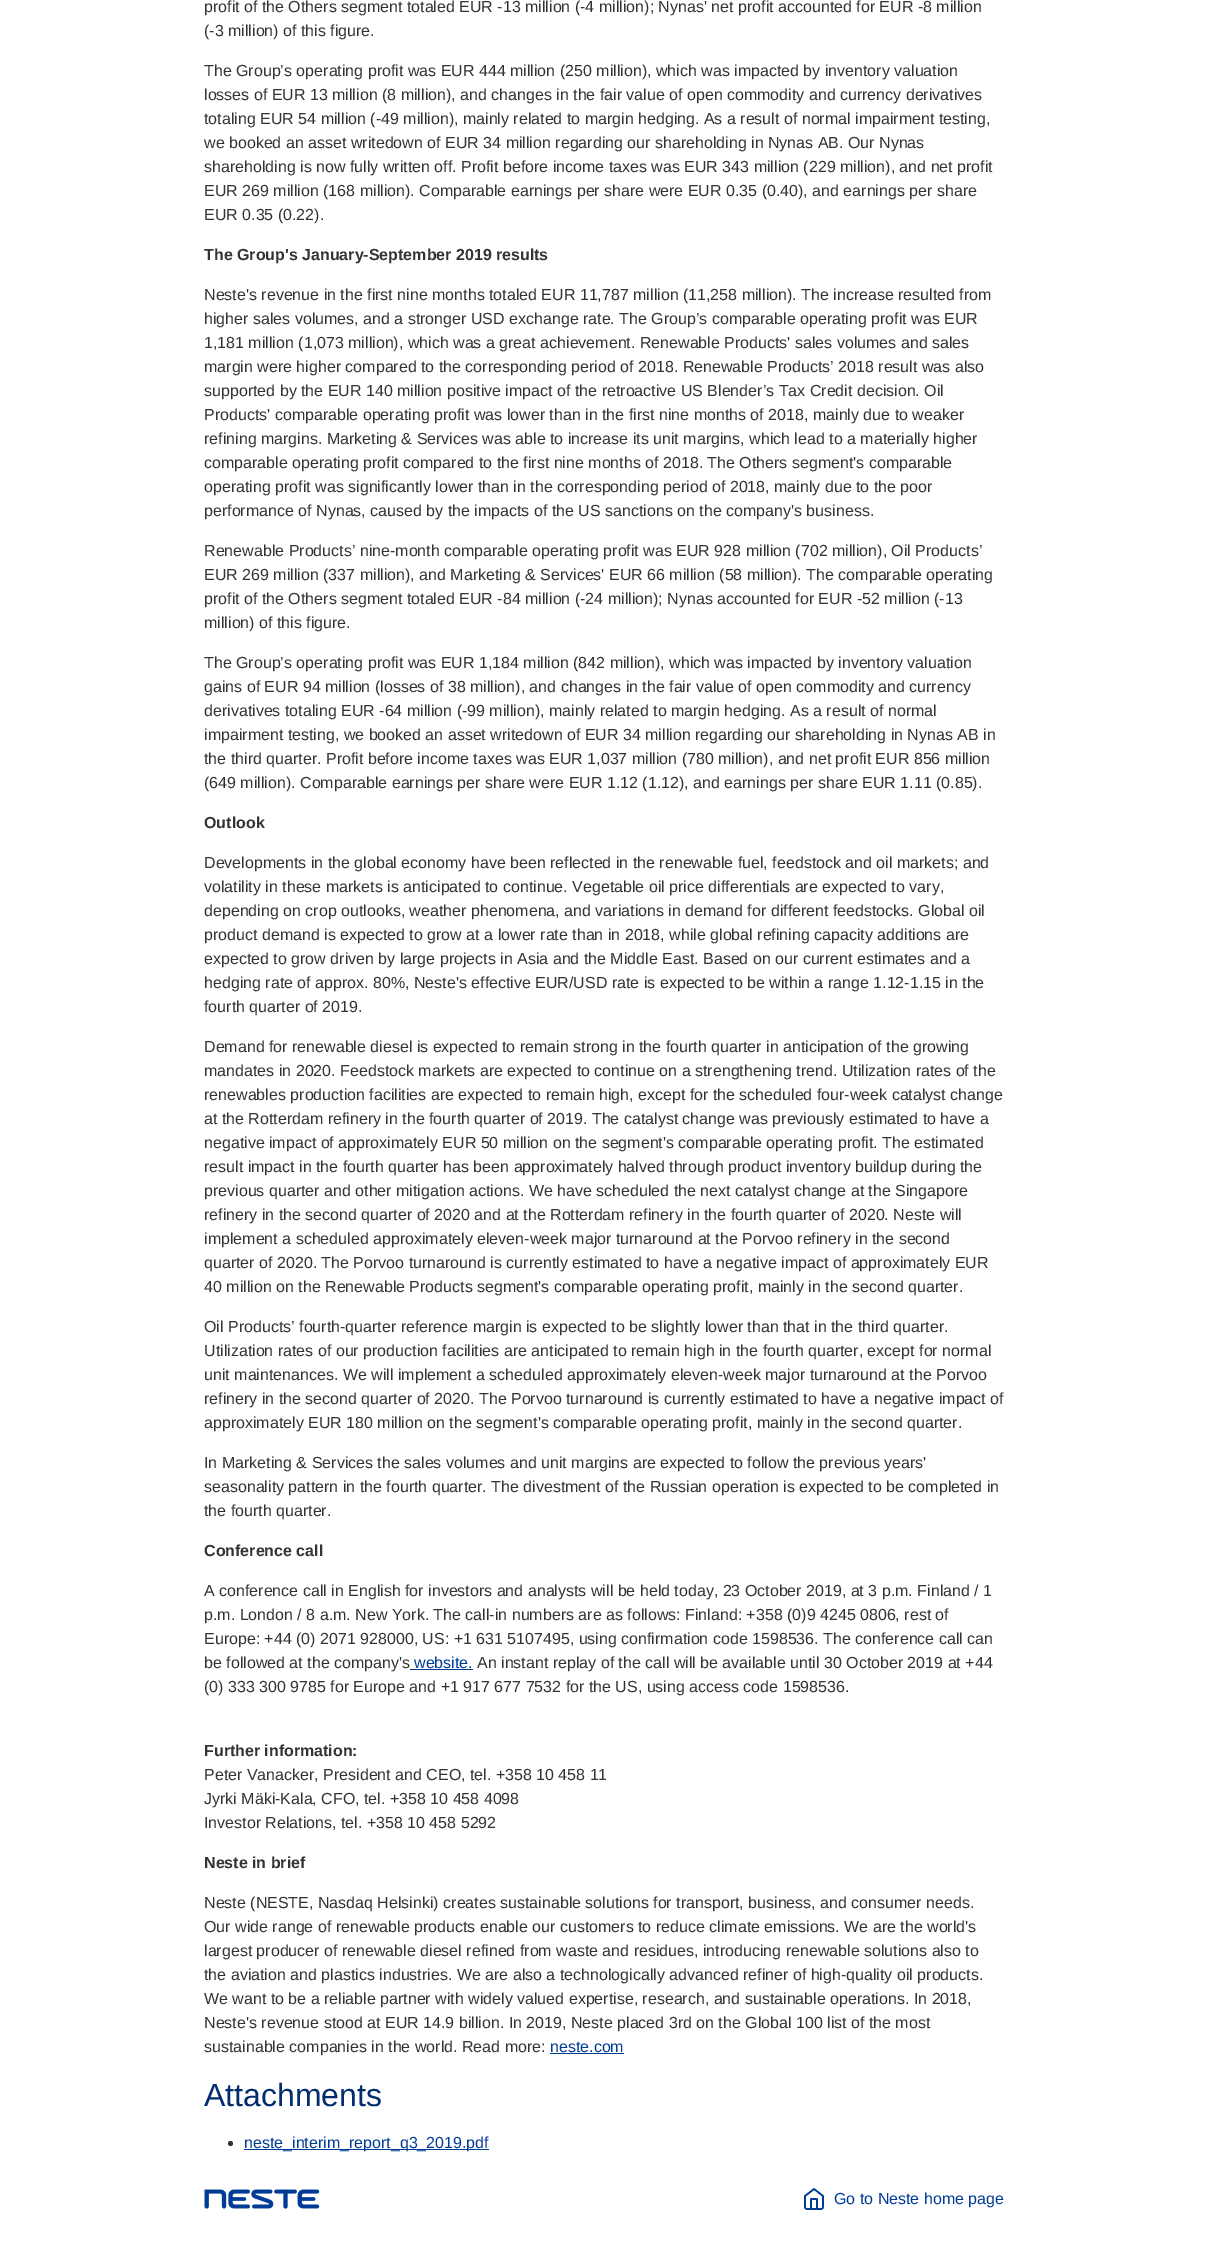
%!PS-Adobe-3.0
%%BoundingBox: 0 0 1208 2243
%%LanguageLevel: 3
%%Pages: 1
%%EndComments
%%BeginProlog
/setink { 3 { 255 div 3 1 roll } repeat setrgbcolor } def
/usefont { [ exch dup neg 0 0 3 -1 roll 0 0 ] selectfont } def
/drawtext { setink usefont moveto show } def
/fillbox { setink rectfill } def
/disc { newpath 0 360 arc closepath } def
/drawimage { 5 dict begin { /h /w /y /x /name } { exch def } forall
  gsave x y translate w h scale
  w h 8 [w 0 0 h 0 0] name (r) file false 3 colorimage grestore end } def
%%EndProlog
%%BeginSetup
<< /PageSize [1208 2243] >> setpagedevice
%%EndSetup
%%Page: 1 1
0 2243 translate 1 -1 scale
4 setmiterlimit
0 0 1208 2243 255 255 255 fillbox
(profit of the Others segment totaled EUR -13 million \(-4 million\); Nynas' net profit accounted for EUR -8 million) 204 12 /LiberationSans-Regular 16 51 51 51 drawtext
(\(-3 million\) of this figure.) 204 36 /LiberationSans-Regular 16 51 51 51 drawtext
(The Group’s operating profit was EUR 444 million \(250 million\), which was impacted by inventory valuation) 204 76 /LiberationSans-Regular 16 51 51 51 drawtext
(losses of EUR 13 million \(8 million\), and changes in the fair value of open commodity and currency derivatives) 204 100 /LiberationSans-Regular 16 51 51 51 drawtext
(totaling EUR 54 million \(-49 million\), mainly related to margin hedging. As a result of normal impairment testing,) 204 124 /LiberationSans-Regular 16 51 51 51 drawtext
(we booked an asset writedown of EUR 34 million regarding our shareholding in Nynas AB. Our Nynas) 204 148 /LiberationSans-Regular 16 51 51 51 drawtext
(shareholding is now fully written off. Profit before income taxes was EUR 343 million \(229 million\), and net profit) 204 172 /LiberationSans-Regular 16 51 51 51 drawtext
(EUR 269 million \(168 million\). Comparable earnings per share were EUR 0.35 \(0.40\), and earnings per share) 204 196 /LiberationSans-Regular 16 51 51 51 drawtext
(EUR 0.35 \(0.22\).) 204 220 /LiberationSans-Regular 16 51 51 51 drawtext
(The Group's January-September 2019 results) 204 260 /LiberationSans-Bold 16 51 51 51 drawtext
(Neste's revenue in the first nine months totaled EUR 11,787 million \(11,258 million\). The increase resulted from) 204 300 /LiberationSans-Regular 16 51 51 51 drawtext
(higher sales volumes, and a stronger USD exchange rate. The Group’s comparable operating profit was EUR) 204 324 /LiberationSans-Regular 16 51 51 51 drawtext
(1,181 million \(1,073 million\), which was a great achievement. Renewable Products' sales volumes and sales) 204 348 /LiberationSans-Regular 16 51 51 51 drawtext
(margin were higher compared to the corresponding period of 2018. Renewable Products’ 2018 result was also) 204 372 /LiberationSans-Regular 16 51 51 51 drawtext
(supported by the EUR 140 million positive impact of the retroactive US Blender’s Tax Credit decision. Oil) 204 396 /LiberationSans-Regular 16 51 51 51 drawtext
(Products' comparable operating profit was lower than in the first nine months of 2018, mainly due to weaker) 204 420 /LiberationSans-Regular 16 51 51 51 drawtext
(refining margins. Marketing & Services was able to increase its unit margins, which lead to a materially higher) 204 444 /LiberationSans-Regular 16 51 51 51 drawtext
(comparable operating profit compared to the first nine months of 2018. The Others segment's comparable) 204 468 /LiberationSans-Regular 16 51 51 51 drawtext
(operating profit was significantly lower than in the corresponding period of 2018, mainly due to the poor) 204 492 /LiberationSans-Regular 16 51 51 51 drawtext
(performance of Nynas, caused by the impacts of the US sanctions on the company's business.) 204 516 /LiberationSans-Regular 16 51 51 51 drawtext
(Renewable Products’ nine-month comparable operating profit was EUR 928 million \(702 million\), Oil Products’) 204 556 /LiberationSans-Regular 16 51 51 51 drawtext
(EUR 269 million \(337 million\), and Marketing & Services' EUR 66 million \(58 million\). The comparable operating) 204 580 /LiberationSans-Regular 16 51 51 51 drawtext
(profit of the Others segment totaled EUR -84 million \(-24 million\); Nynas accounted for EUR -52 million \(-13) 204 604 /LiberationSans-Regular 16 51 51 51 drawtext
(million\) of this figure.) 204 628 /LiberationSans-Regular 16 51 51 51 drawtext
(The Group’s operating profit was EUR 1,184 million \(842 million\), which was impacted by inventory valuation) 204 668 /LiberationSans-Regular 16 51 51 51 drawtext
(gains of EUR 94 million \(losses of 38 million\), and changes in the fair value of open commodity and currency) 204 692 /LiberationSans-Regular 16 51 51 51 drawtext
(derivatives totaling EUR -64 million \(-99 million\), mainly related to margin hedging. As a result of normal) 204 716 /LiberationSans-Regular 16 51 51 51 drawtext
(impairment testing, we booked an asset writedown of EUR 34 million regarding our shareholding in Nynas AB in) 204 740 /LiberationSans-Regular 16 51 51 51 drawtext
(the third quarter. Profit before income taxes was EUR 1,037 million \(780 million\), and net profit EUR 856 million) 204 764 /LiberationSans-Regular 16 51 51 51 drawtext
(\(649 million\). Comparable earnings per share were EUR 1.12 \(1.12\), and earnings per share EUR 1.11 \(0.85\).) 204 788 /LiberationSans-Regular 16 51 51 51 drawtext
(Outlook) 204 828 /LiberationSans-Bold 16 51 51 51 drawtext
(Developments in the global economy have been reflected in the renewable fuel, feedstock and oil markets; and) 204 868 /LiberationSans-Regular 16 51 51 51 drawtext
(volatility in these markets is anticipated to continue. Vegetable oil price differentials are expected to vary,) 204 892 /LiberationSans-Regular 16 51 51 51 drawtext
(depending on crop outlooks, weather phenomena, and variations in demand for different feedstocks. Global oil) 204 916 /LiberationSans-Regular 16 51 51 51 drawtext
(product demand is expected to grow at a lower rate than in 2018, while global refining capacity additions are) 204 940 /LiberationSans-Regular 16 51 51 51 drawtext
(expected to grow driven by large projects in Asia and the Middle East. Based on our current estimates and a) 204 964 /LiberationSans-Regular 16 51 51 51 drawtext
(hedging rate of approx. 80%, Neste's effective EUR/USD rate is expected to be within a range 1.12-1.15 in the) 204 988 /LiberationSans-Regular 16 51 51 51 drawtext
(fourth quarter of 2019.) 204 1012 /LiberationSans-Regular 16 51 51 51 drawtext
(Demand for renewable diesel is expected to remain strong in the fourth quarter in anticipation of the growing) 204 1052 /LiberationSans-Regular 16 51 51 51 drawtext
(mandates in 2020. Feedstock markets are expected to continue on a strengthening trend. Utilization rates of the) 204 1076 /LiberationSans-Regular 16 51 51 51 drawtext
(renewables production facilities are expected to remain high, except for the scheduled four-week catalyst change) 204 1100 /LiberationSans-Regular 16 51 51 51 drawtext
(at the Rotterdam refinery in the fourth quarter of 2019. The catalyst change was previously estimated to have a) 204 1124 /LiberationSans-Regular 16 51 51 51 drawtext
(negative impact of approximately EUR 50 million on the segment's comparable operating profit. The estimated) 204 1148 /LiberationSans-Regular 16 51 51 51 drawtext
(result impact in the fourth quarter has been approximately halved through product inventory buildup during the) 204 1172 /LiberationSans-Regular 16 51 51 51 drawtext
(previous quarter and other mitigation actions. We have scheduled the next catalyst change at the Singapore) 204 1196 /LiberationSans-Regular 16 51 51 51 drawtext
(refinery in the second quarter of 2020 and at the Rotterdam refinery in the fourth quarter of 2020. Neste will) 204 1220 /LiberationSans-Regular 16 51 51 51 drawtext
(implement a scheduled approximately eleven-week major turnaround at the Porvoo refinery in the second) 204 1244 /LiberationSans-Regular 16 51 51 51 drawtext
(quarter of 2020. The Porvoo turnaround is currently estimated to have a negative impact of approximately EUR) 204 1268 /LiberationSans-Regular 16 51 51 51 drawtext
(40 million on the Renewable Products segment's comparable operating profit, mainly in the second quarter.) 204 1292 /LiberationSans-Regular 16 51 51 51 drawtext
(Oil Products’ fourth-quarter reference margin is expected to be slightly lower than that in the third quarter.) 204 1332 /LiberationSans-Regular 16 51 51 51 drawtext
(Utilization rates of our production facilities are anticipated to remain high in the fourth quarter, except for normal) 204 1356 /LiberationSans-Regular 16 51 51 51 drawtext
(unit maintenances. We will implement a scheduled approximately eleven-week major turnaround at the Porvoo) 204 1380 /LiberationSans-Regular 16 51 51 51 drawtext
(refinery in the second quarter of 2020. The Porvoo turnaround is currently estimated to have a negative impact of) 204 1404 /LiberationSans-Regular 16 51 51 51 drawtext
(approximately EUR 180 million on the segment's comparable operating profit, mainly in the second quarter.) 204 1428 /LiberationSans-Regular 16 51 51 51 drawtext
(In Marketing & Services the sales volumes and unit margins are expected to follow the previous years') 204 1468 /LiberationSans-Regular 16 51 51 51 drawtext
(seasonality pattern in the fourth quarter. The divestment of the Russian operation is expected to be completed in) 204 1492 /LiberationSans-Regular 16 51 51 51 drawtext
(the fourth quarter.) 204 1516 /LiberationSans-Regular 16 51 51 51 drawtext
(Conference call) 204 1556 /LiberationSans-Bold 16 51 51 51 drawtext
(A conference call in English for investors and analysts will be held today, 23 October 2019, at 3 p.m. Finland / 1) 204 1596 /LiberationSans-Regular 16 51 51 51 drawtext
(p.m. London / 8 a.m. New York. The call-in numbers are as follows: Finland: +358 \(0\)9 4245 0806, rest of) 204 1620 /LiberationSans-Regular 16 51 51 51 drawtext
(Europe: +44 \(0\) 2071 928000, US: +1 631 5107495, using confirmation code 1598536. The conference call can) 204 1644 /LiberationSans-Regular 16 51 51 51 drawtext
(be followed at the company's) 204 1668 /LiberationSans-Regular 16 51 51 51 drawtext
(website.) 414 1668 /LiberationSans-Regular 16 0 60 150 drawtext
410 1669 63 1 0 60 150 fillbox
(An instant replay of the call will be available until 30 October 2019 at +44) 477 1668 /LiberationSans-Regular 16 51 51 51 drawtext
(\(0\) 333 300 9785 for Europe and +1 917 677 7532 for the US, using access code 1598536.) 204 1692 /LiberationSans-Regular 16 51 51 51 drawtext
(Further information:) 204 1756 /LiberationSans-Bold 16 51 51 51 drawtext
(Peter Vanacker, President and CEO, tel. +358 10 458 11) 204 1780 /LiberationSans-Regular 16 51 51 51 drawtext
(Jyrki Mäki-Kala, CFO, tel. +358 10 458 4098) 204 1804 /LiberationSans-Regular 16 51 51 51 drawtext
(Investor Relations, tel. +358 10 458 5292) 204 1828 /LiberationSans-Regular 16 51 51 51 drawtext
(Neste in brief) 204 1868 /LiberationSans-Bold 16 51 51 51 drawtext
(Neste \(NESTE, Nasdaq Helsinki\) creates sustainable solutions for transport, business, and consumer needs.) 204 1908 /LiberationSans-Regular 16 51 51 51 drawtext
(Our wide range of renewable products enable our customers to reduce climate emissions. We are the world's) 204 1932 /LiberationSans-Regular 16 51 51 51 drawtext
(largest producer of renewable diesel refined from waste and residues, introducing renewable solutions also to) 204 1956 /LiberationSans-Regular 16 51 51 51 drawtext
(the aviation and plastics industries. We are also a technologically advanced refiner of high-quality oil products.) 204 1980 /LiberationSans-Regular 16 51 51 51 drawtext
(We want to be a reliable partner with widely valued expertise, research, and sustainable operations. In 2018,) 204 2004 /LiberationSans-Regular 16 51 51 51 drawtext
(Neste's revenue stood at EUR 14.9 billion. In 2019, Neste placed 3rd on the Global 100 list of the most) 204 2028 /LiberationSans-Regular 16 51 51 51 drawtext
(sustainable companies in the world. Read more:) 204 2052 /LiberationSans-Regular 16 51 51 51 drawtext
(neste.com) 550 2052 /LiberationSans-Regular 16 0 60 150 drawtext
550 2053 74 1 0 60 150 fillbox
(Attachments) 204 2106 /LiberationSans-Regular 32 1 44 109 drawtext
51 51 51 setink
230.5 2143.5 2.5 disc fill
244 2149 245 1 0 60 150 fillbox
(neste_interim_report_q3_2019.pdf) 244 2148 /LiberationSans-Regular 16 0 60 150 drawtext
(assets/img1.rgb) 204 2189 116 20 drawimage
(assets/img2.rgb) 804 2188 20 22 drawimage
(Go to Neste home page) 834 2204 /LiberationSans-Regular 16 0 60 150 drawtext
showpage
%%EOF
